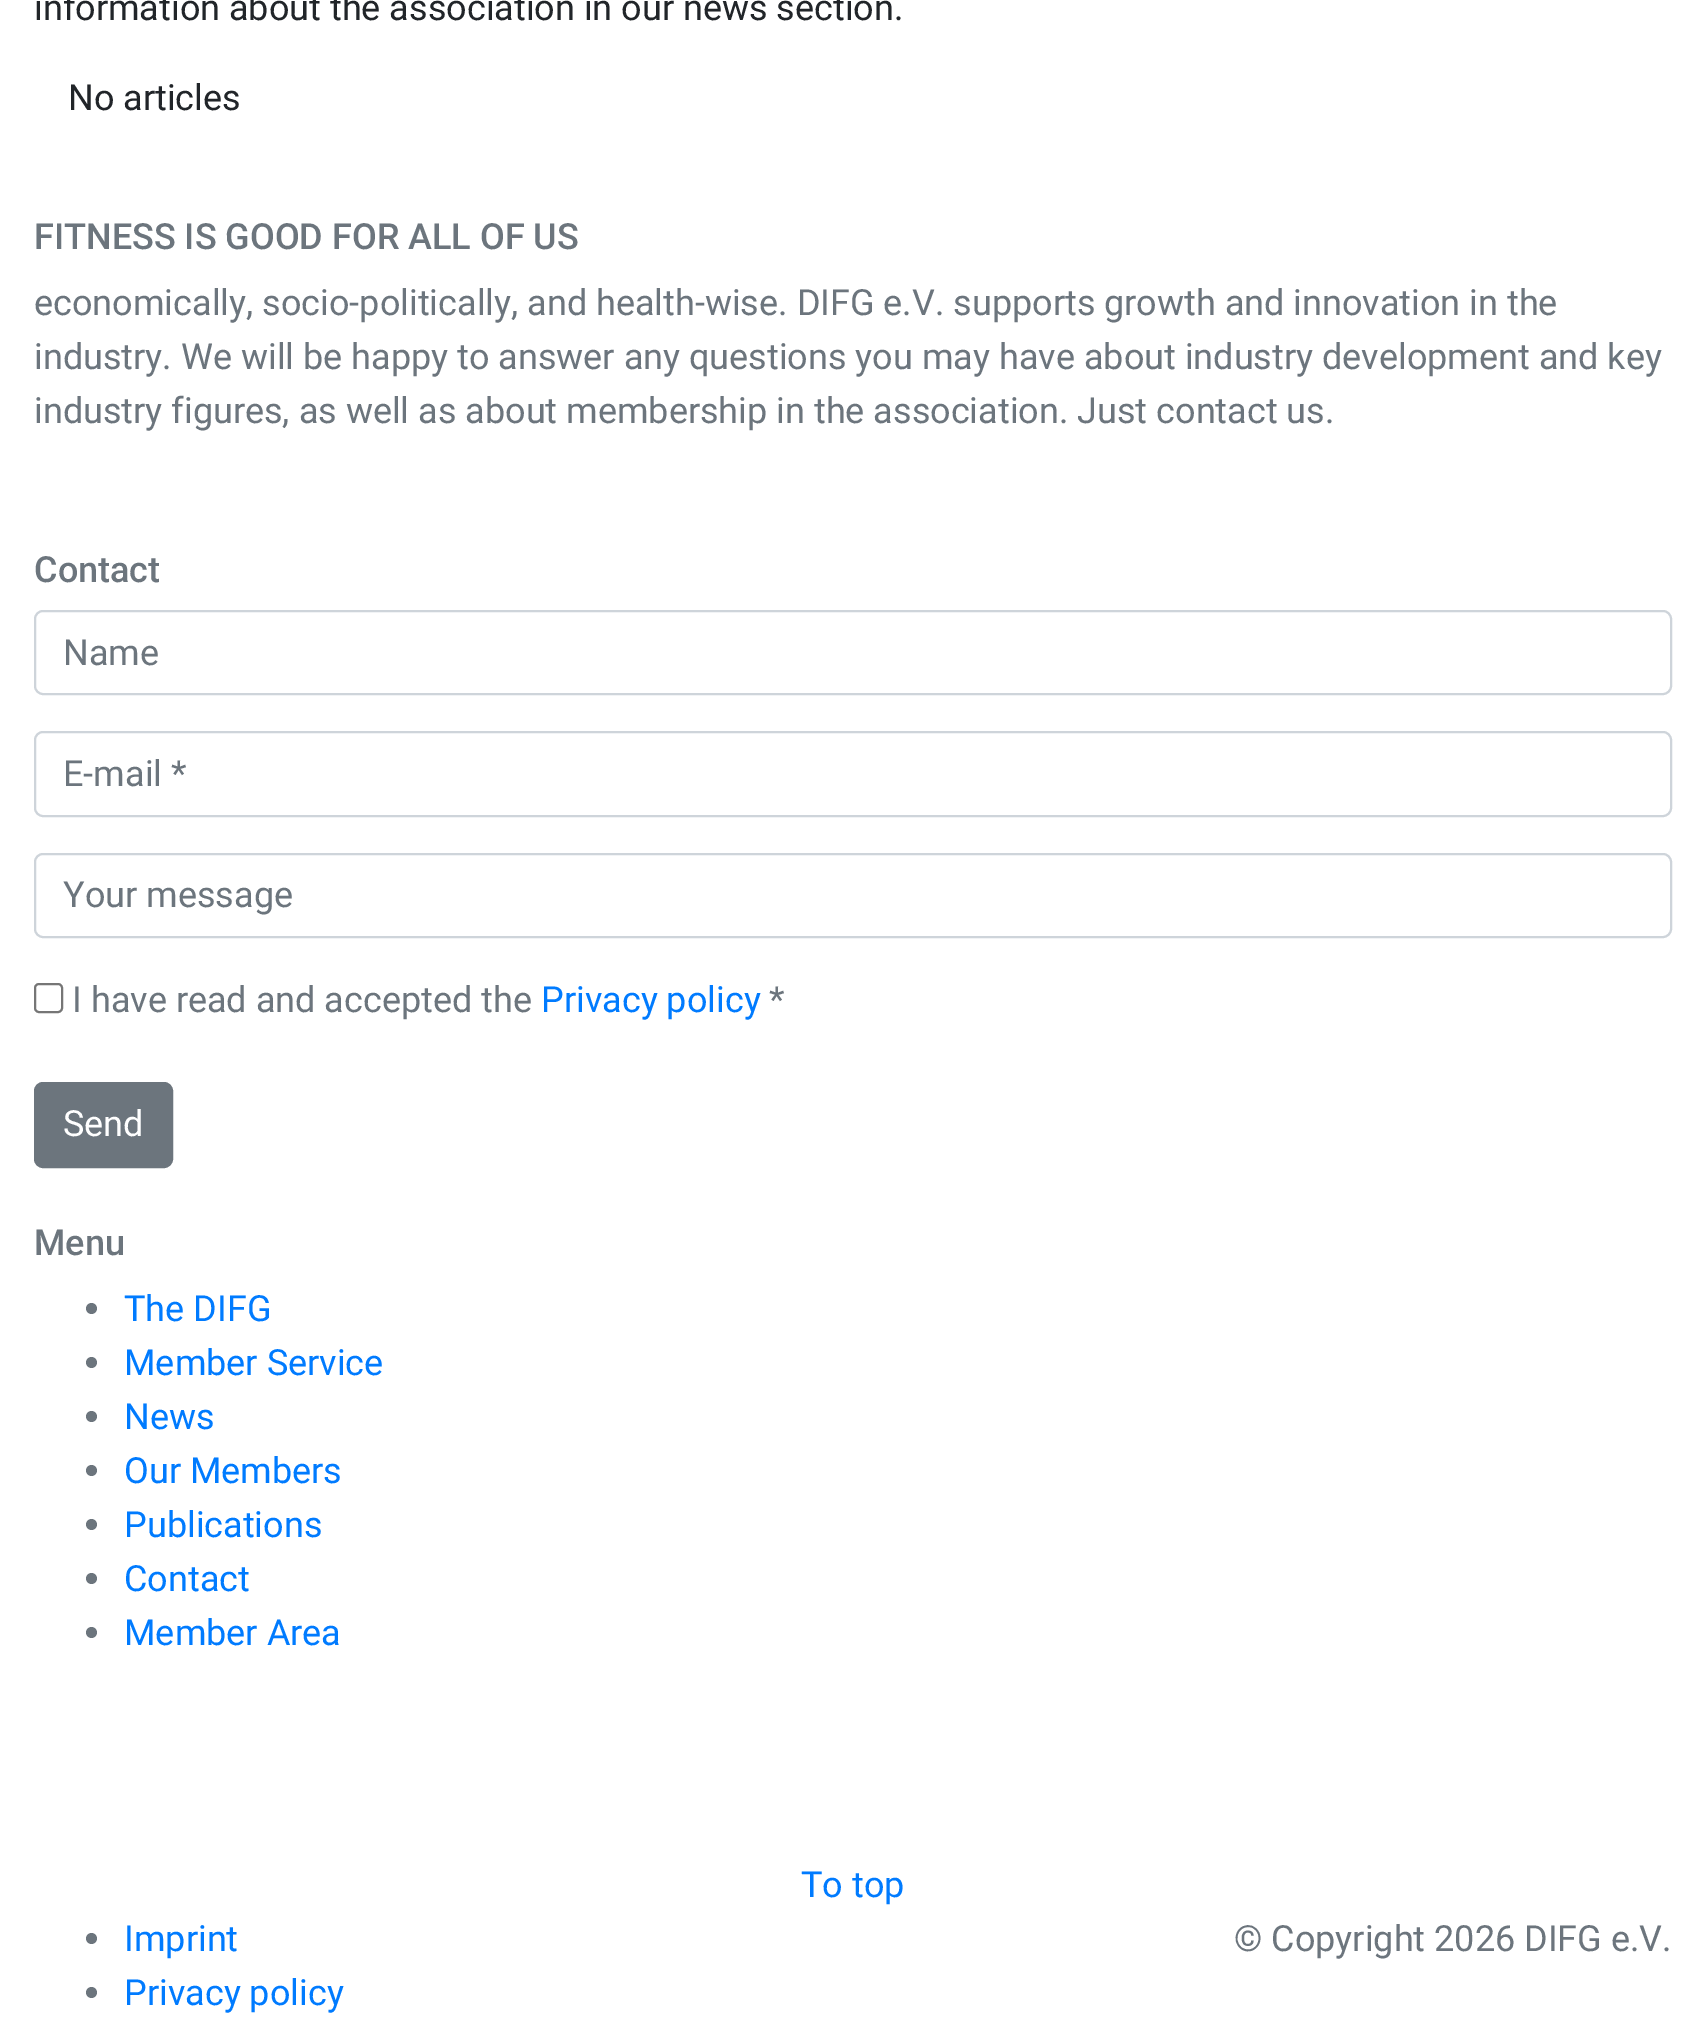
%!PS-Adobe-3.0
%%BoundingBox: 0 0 1704 2019
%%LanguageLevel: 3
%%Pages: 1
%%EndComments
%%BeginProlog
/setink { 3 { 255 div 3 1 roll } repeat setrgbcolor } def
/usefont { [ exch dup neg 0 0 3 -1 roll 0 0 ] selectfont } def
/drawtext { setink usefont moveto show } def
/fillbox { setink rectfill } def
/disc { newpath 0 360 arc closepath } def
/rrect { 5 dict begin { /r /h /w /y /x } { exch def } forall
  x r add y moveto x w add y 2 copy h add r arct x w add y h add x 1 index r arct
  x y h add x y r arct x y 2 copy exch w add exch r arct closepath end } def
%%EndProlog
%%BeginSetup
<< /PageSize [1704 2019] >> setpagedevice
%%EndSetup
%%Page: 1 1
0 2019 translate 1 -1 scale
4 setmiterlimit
0 0 1704 2019 255 255 255 fillbox
(information about the association in our news section.) 34 20 /Roboto-Regular 36 33 37 41 drawtext
(No articles) 68 110 /Roboto-Regular 36 33 37 41 drawtext
(FITNESS IS GOOD FOR ALL OF US) 34 249 /Roboto-Medium 36 108 117 125 drawtext
(economically, socio-politically, and health-wise. DIFG e.V. supports growth and innovation in the) 34 315 /Roboto-Regular 36 108 117 125 drawtext
(industry. We will be happy to answer any questions you may have about industry development and key) 34 369 /Roboto-Regular 36 108 117 125 drawtext
(industry figures, as well as about membership in the association. Just contact us.) 34 423 /Roboto-Regular 36 108 117 125 drawtext
(Contact) 34 582 /Roboto-Medium 36 108 117 125 drawtext
206 212 218 setink
2 setlinewidth
35 611 1636 83 8 rrect stroke
(Name) 63 665 /Roboto-Regular 36 108 117 125 drawtext
206 212 218 setink
35 732 1636 84 8 rrect stroke
(E-mail *) 63 786 /Roboto-Regular 36 108 117 125 drawtext
206 212 218 setink
35 854 1636 83 8 rrect stroke
(Your message) 63 907 /Roboto-Regular 36 108 117 125 drawtext
118 118 118 setink
35 984 27 28 4 rrect stroke
(I have read and accepted the) 72 1012 /Roboto-Regular 36 108 117 125 drawtext
(Privacy policy) 541 1012 /Roboto-Regular 36 0 123 255 drawtext
(*) 769 1012 /Roboto-Regular 36 108 117 125 drawtext
35 1083 137 84 8 rrect gsave fill grestore
stroke
(Send) 63 1136 /Roboto-Regular 36 255 255 255 drawtext
(Menu) 34 1255 /Roboto-Medium 36 108 117 125 drawtext
91.5 1308.5 5.5 disc fill
(The DIFG) 124 1321 /Roboto-Regular 36 0 123 255 drawtext
108 117 125 setink
91.5 1362.5 5.5 disc fill
(Member Service) 124 1375 /Roboto-Regular 36 0 123 255 drawtext
108 117 125 setink
91.5 1416.5 5.5 disc fill
(News) 124 1429 /Roboto-Regular 36 0 123 255 drawtext
108 117 125 setink
91.5 1470.5 5.5 disc fill
(Our Members) 124 1483 /Roboto-Regular 36 0 123 255 drawtext
108 117 125 setink
91.5 1524.5 5.5 disc fill
(Publications) 124 1537 /Roboto-Regular 36 0 123 255 drawtext
108 117 125 setink
91.5 1578.5 5.5 disc fill
(Contact) 124 1591 /Roboto-Regular 36 0 123 255 drawtext
108 117 125 setink
91.5 1632.5 5.5 disc fill
(Member Area) 124 1645 /Roboto-Regular 36 0 123 255 drawtext
(To top) 801 1897 /Roboto-Regular 36 0 123 255 drawtext
108 117 125 setink
91.5 1938.5 5.5 disc fill
(Imprint) 124 1951 /Roboto-Regular 36 0 123 255 drawtext
108 117 125 setink
91.5 1992.5 5.5 disc fill
(Privacy policy) 124 2005 /Roboto-Regular 36 0 123 255 drawtext
(© Copyright 2026 DIFG e.V.) 1234 1951 /Roboto-Regular 36 108 117 125 drawtext
showpage
%%EOF
